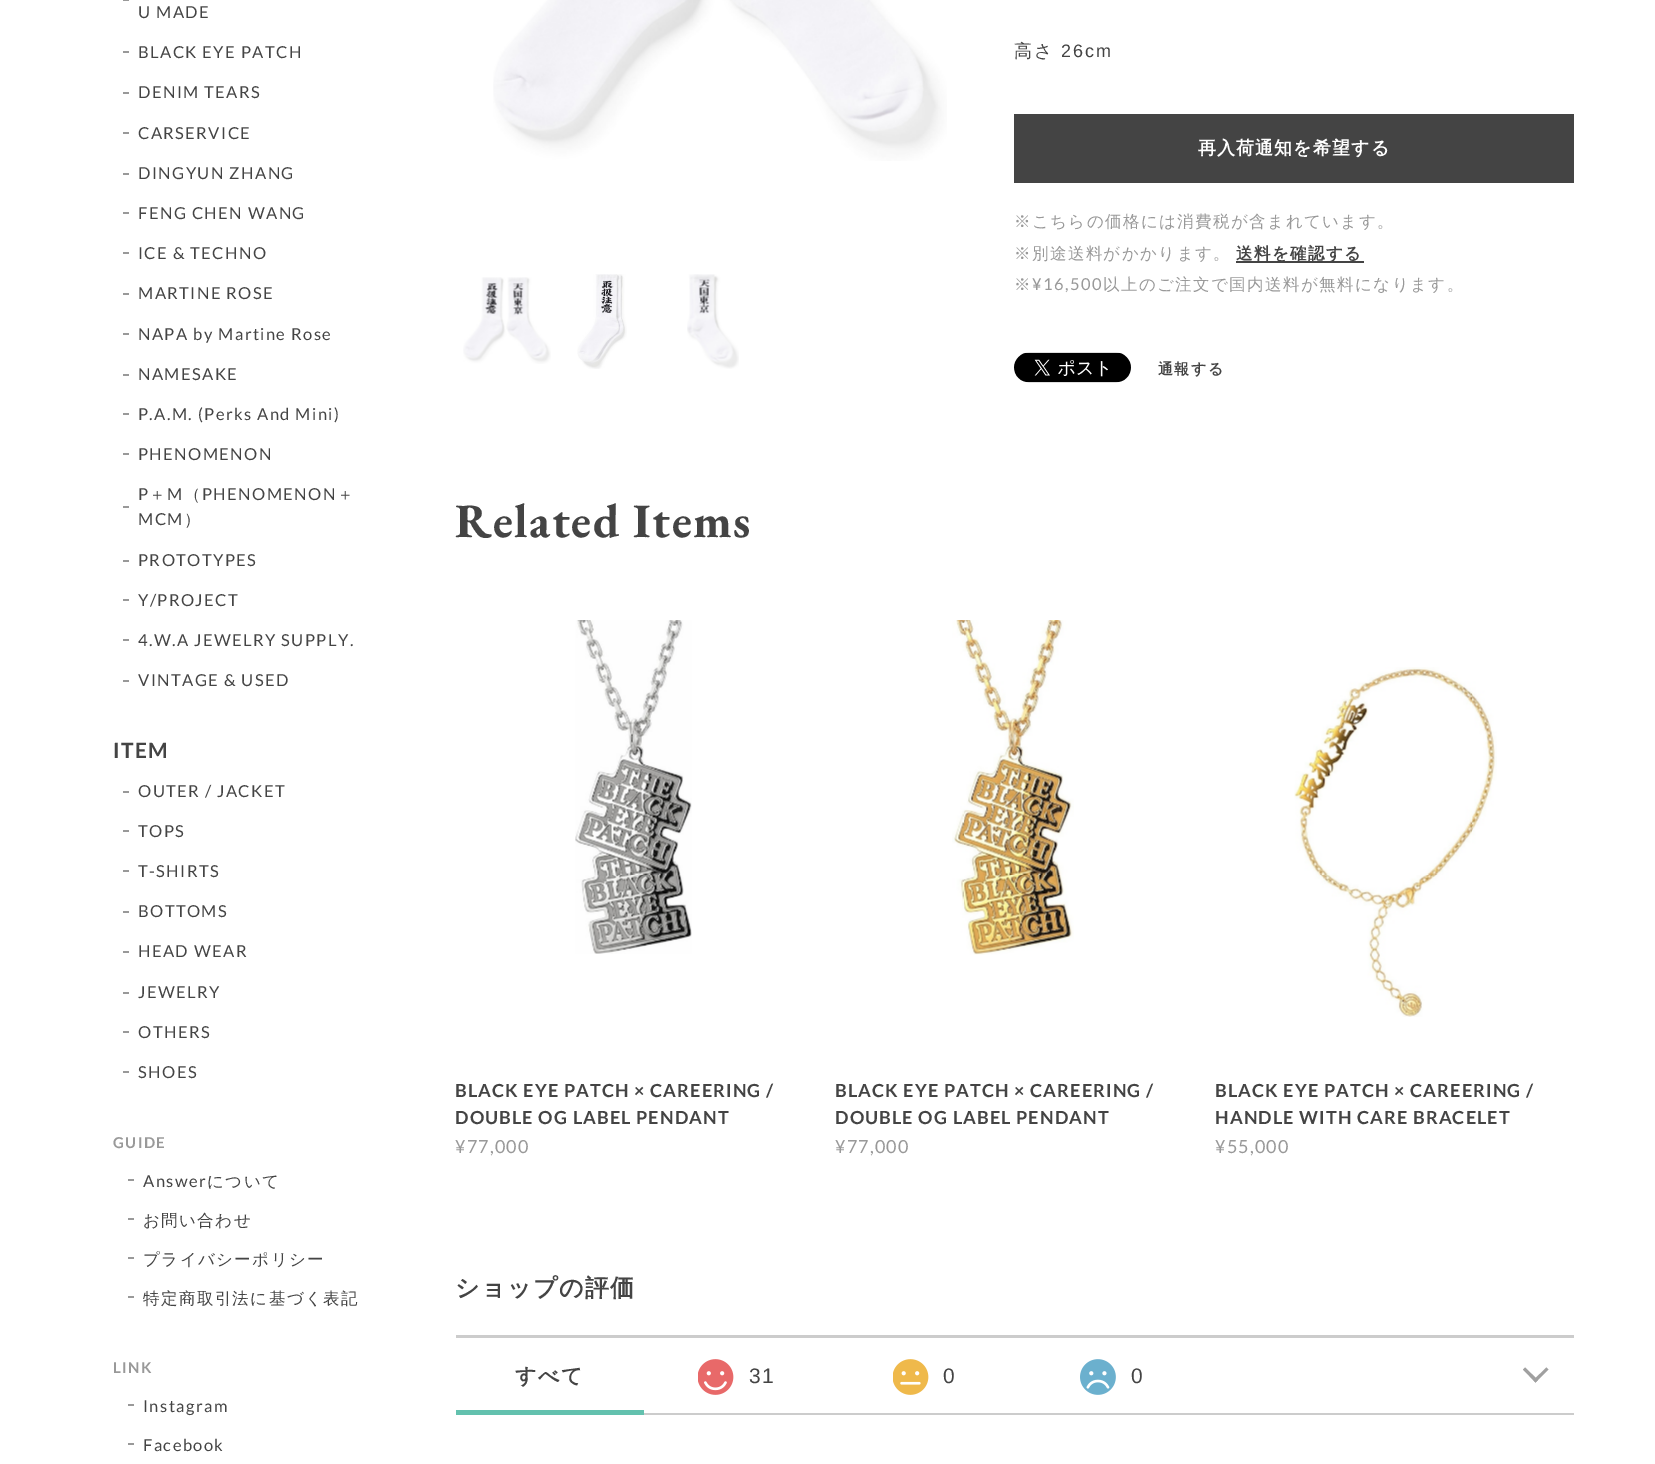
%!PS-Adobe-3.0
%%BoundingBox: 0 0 1655 1464
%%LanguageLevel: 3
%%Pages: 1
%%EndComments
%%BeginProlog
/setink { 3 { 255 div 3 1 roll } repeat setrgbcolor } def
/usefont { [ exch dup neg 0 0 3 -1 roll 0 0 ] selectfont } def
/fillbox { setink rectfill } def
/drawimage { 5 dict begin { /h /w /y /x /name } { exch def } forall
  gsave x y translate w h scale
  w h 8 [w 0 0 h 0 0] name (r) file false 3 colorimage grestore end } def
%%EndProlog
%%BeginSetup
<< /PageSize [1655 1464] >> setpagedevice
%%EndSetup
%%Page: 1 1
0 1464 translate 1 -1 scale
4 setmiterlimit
0 0 1655 1464 255 255 255 fillbox
123 0 6 1 153 153 153 fillbox
/Lato-Regular 16.5 usefont
68 68 68 setink
138 18 moveto 1.4 0 (U MADE) ashow
123 51 6 2 153 153 153 fillbox
68 68 68 setink
138 58 moveto 1.4 0 (BLACK EYE PATCH) ashow
123 92 6 2 153 153 153 fillbox
68 68 68 setink
138 98 moveto 1.4 0 (DENIM TEARS) ashow
123 132 6 2 153 153 153 fillbox
68 68 68 setink
138 139 moveto 1.4 0 (CARSERVICE) ashow
123 173 6 2 153 153 153 fillbox
68 68 68 setink
138 179 moveto 1.4 0 (DINGYUN ZHANG) ashow
123 212 6 2 153 153 153 fillbox
68 68 68 setink
138 219 moveto 1.4 0 (FENG CHEN WANG) ashow
123 252 6 2 153 153 153 fillbox
68 68 68 setink
138 259 moveto 1.4 0 (ICE & TECHNO) ashow
123 293 6 2 153 153 153 fillbox
68 68 68 setink
138 299 moveto 1.4 0 (MARTINE ROSE) ashow
123 333 6 2 153 153 153 fillbox
68 68 68 setink
138 340 moveto 1.4 0 (NAPA by Martine Rose) ashow
123 374 6 2 153 153 153 fillbox
68 68 68 setink
138 380 moveto 1.4 0 (NAMESAKE) ashow
123 413 6 2 153 153 153 fillbox
68 68 68 setink
138 420 moveto 1.4 0 (P.A.M. \(Perks And Mini\)) ashow
123 453 6 2 153 153 153 fillbox
68 68 68 setink
138 460 moveto 1.4 0 (PHENOMENON) ashow
138 500 moveto 1.4 0 (P) ashow
/WenQuanYiZenHei-Medium 16.5 usefont
149 500 moveto 1.4 0 (＋) ashow
/Lato-Regular 16.5 usefont
167 500 moveto 1.4 0 (M) ashow
/WenQuanYiZenHei-Medium 16.5 usefont
184 500 moveto 1.4 0 (（) ashow
/Lato-Regular 16.5 usefont
202 500 moveto 1.4 0 (PHENOMENON) ashow
/WenQuanYiZenHei-Medium 16.5 usefont
337 500 moveto 1.4 0 (＋) ashow
123 506 6 2 153 153 153 fillbox
/Lato-Regular 16.5 usefont
68 68 68 setink
138 525 moveto 1.4 0 (MCM) ashow
/WenQuanYiZenHei-Medium 16.5 usefont
184 525 moveto 1.4 0 (）) ashow
123 560 6 2 153 153 153 fillbox
/Lato-Regular 16.5 usefont
68 68 68 setink
138 566 moveto 1.4 0 (PROTOTYPES) ashow
123 599 6 2 153 153 153 fillbox
68 68 68 setink
138 606 moveto 1.4 0 (Y/PROJECT) ashow
123 639 6 2 153 153 153 fillbox
68 68 68 setink
138 646 moveto 1.4 0 (4.W.A JEWELRY SUPPLY.) ashow
123 680 6 2 153 153 153 fillbox
68 68 68 setink
138 686 moveto 1.4 0 (VINTAGE & USED) ashow
/Lato-Bold 21 usefont
113 758 moveto 1.4 0 (ITEM) ashow
123 791 6 2 153 153 153 fillbox
/Lato-Regular 16.5 usefont
68 68 68 setink
138 797 moveto 1.4 0 (OUTER / JACKET) ashow
123 830 6 2 153 153 153 fillbox
68 68 68 setink
138 837 moveto 1.4 0 (TOPS) ashow
123 870 6 2 153 153 153 fillbox
68 68 68 setink
138 877 moveto 1.4 0 (T-SHIRTS) ashow
123 911 6 2 153 153 153 fillbox
68 68 68 setink
138 917 moveto 1.4 0 (BOTTOMS) ashow
123 951 6 2 153 153 153 fillbox
68 68 68 setink
138 957 moveto 1.4 0 (HEAD WEAR) ashow
123 992 6 2 153 153 153 fillbox
68 68 68 setink
138 998 moveto 1.4 0 (JEWELRY) ashow
123 1031 6 2 153 153 153 fillbox
68 68 68 setink
138 1038 moveto 1.4 0 (OTHERS) ashow
123 1071 6 2 153 153 153 fillbox
68 68 68 setink
138 1078 moveto 1.4 0 (SHOES) ashow
/Lato-Bold 15 usefont
153 153 153 setink
113 1148 moveto 1.4 0 (GUIDE) ashow
128 1179 6 2 153 153 153 fillbox
/Lato-Regular 16.5 usefont
68 68 68 setink
143 1187 moveto 1.4 0 (Answer) ashow
/WenQuanYiZenHei-Medium 16.5 usefont
207 1187 moveto 1.4 0 (について) ashow
128 1218 6 2 153 153 153 fillbox
68 68 68 setink
143 1226 moveto 1.4 0 (お問い合わせ) ashow
128 1257 6 2 153 153 153 fillbox
68 68 68 setink
143 1265 moveto 1.4 0 (プライバシーポリシー) ashow
128 1296 6 2 153 153 153 fillbox
68 68 68 setink
143 1304 moveto 1.4 0 (特定商取引法に基づく表記) ashow
/Lato-Bold 15 usefont
153 153 153 setink
113 1373 moveto 1.4 0 (LINK) ashow
128 1404 6 2 153 153 153 fillbox
/Lato-Regular 16.5 usefont
68 68 68 setink
143 1412 moveto 1.4 0 (Instagram) ashow
128 1443 6 2 153 153 153 fillbox
68 68 68 setink
143 1451 moveto 1.4 0 (Facebook) ashow
(assets/img1.rgb) 493 0 454 161 drawimage
(assets/img2.rgb) 463 277 88 87 drawimage
(assets/img3.rgb) 577 274 50 95 drawimage
(assets/img4.rgb) 687 274 52 95 drawimage
/WenQuanYiZenHei-Medium 18 usefont
1014 57 moveto 2 0 (高さ) ashow
/LiberationSans-Regular 18 usefont
1061 57 moveto 2 0 (26cm) ashow
1014 114 560 69 68 68 68 fillbox
/WenQuanYiZenHei-Bold 18 usefont
255 255 255 setink
1198 154 moveto 1.1 0 (再入荷通知を希望する) ashow
/WenQuanYiZenHei-Medium 16.5 usefont
153 153 153 setink
1014 227 moveto 1.4 0 (※こちらの価格には消費税が含まれています。) ashow
1014 259 moveto 1.4 0 (※別途送料がかかります。) ashow
1236 261 128 2 68 68 68 fillbox
/WenQuanYiZenHei-Bold 16.5 usefont
1236 259 moveto 1.4 0 (送料を確認する) ashow
/WenQuanYiZenHei-Medium 16.5 usefont
153 153 153 setink
1014 290 moveto 1.4 0 (※) ashow
/Lato-Regular 16.5 usefont
1032 290 moveto 1.4 0 (¥16,500) ashow
/WenQuanYiZenHei-Medium 16.5 usefont
1103 290 moveto 1.4 0 (以上のご注文で国内送料が無料になります。) ashow
(assets/img5.rgb) 1014 352 117 31 drawimage
/WenQuanYiZenHei-Bold 15 usefont
68 68 68 setink
1158 374 moveto 1.4 0 (通報する) ashow
/EBGaramond-Bold 48 usefont
455 537 moveto 1.4 0 (Related Items) ashow
(assets/img6.rgb) 575 620 117 334 drawimage
/Lato-Bold 18 usefont
455 1097 moveto 1.1 0 (BLACK EYE PATCH × CAREERING /) ashow
455 1124 moveto 1.1 0 (DOUBLE OG LABEL PENDANT) ashow
/Lato-Regular 18 usefont
153 153 153 setink
455 1153 moveto 1.1 0 (¥77,000) ashow
(assets/img7.rgb) 952 620 122 335 drawimage
/Lato-Bold 18 usefont
68 68 68 setink
835 1097 moveto 1.1 0 (BLACK EYE PATCH × CAREERING /) ashow
835 1124 moveto 1.1 0 (DOUBLE OG LABEL PENDANT) ashow
/Lato-Regular 18 usefont
153 153 153 setink
835 1153 moveto 1.1 0 (¥77,000) ashow
(assets/img8.rgb) 1294 667 203 350 drawimage
/Lato-Bold 18 usefont
68 68 68 setink
1215 1097 moveto 1.1 0 (BLACK EYE PATCH × CAREERING /) ashow
1215 1124 moveto 1.1 0 (HANDLE WITH CARE BRACELET) ashow
/Lato-Regular 18 usefont
153 153 153 setink
1215 1153 moveto 1.1 0 (¥55,000) ashow
/WenQuanYiZenHei-Bold 24 usefont
68 68 68 setink
455 1296 moveto 1.4 0 (ショップの評価) ashow
456 1335 1118 3 204 204 204 fillbox
644 1413 930 2 204 204 204 fillbox
/WenQuanYiZenHei-Bold 21 usefont
68 68 68 setink
515 1383 moveto 1.4 0 (すべて) ashow
(assets/img9.rgb) 698 1359 36 36 drawimage
/LiberationSans-Regular 21 usefont
749 1383 moveto 1.4 0 (31) ashow
(assets/img10.rgb) 893 1359 36 36 drawimage
943 1383 moveto 1.4 0 (0) ashow
(assets/img11.rgb) 1080 1359 36 36 drawimage
1131 1383 moveto 1.4 0 (0) ashow
456 1410 188 5 99 193 174 fillbox
160 160 160 setink
1546.5 1367.5 moveto 1548.5 1369.5 lineto 1535.5 1382.5 lineto 1533.5 1380 lineto closepath fill
1525 1367.5 moveto 1538 1380 lineto 1535.5 1382.5 lineto 1523 1369.5 lineto closepath fill
showpage
%%EOF
